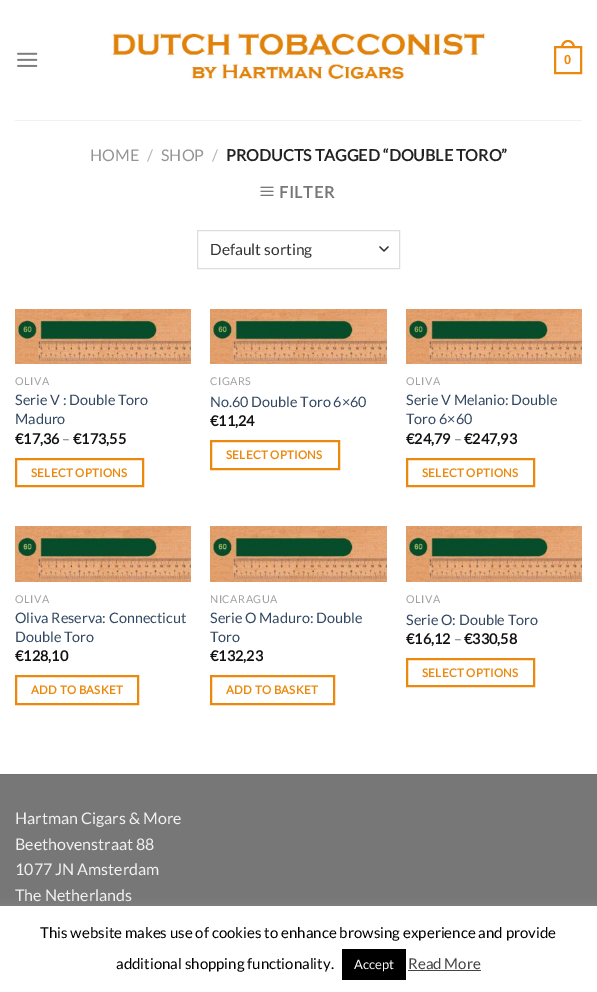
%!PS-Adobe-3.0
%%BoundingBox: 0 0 597 992
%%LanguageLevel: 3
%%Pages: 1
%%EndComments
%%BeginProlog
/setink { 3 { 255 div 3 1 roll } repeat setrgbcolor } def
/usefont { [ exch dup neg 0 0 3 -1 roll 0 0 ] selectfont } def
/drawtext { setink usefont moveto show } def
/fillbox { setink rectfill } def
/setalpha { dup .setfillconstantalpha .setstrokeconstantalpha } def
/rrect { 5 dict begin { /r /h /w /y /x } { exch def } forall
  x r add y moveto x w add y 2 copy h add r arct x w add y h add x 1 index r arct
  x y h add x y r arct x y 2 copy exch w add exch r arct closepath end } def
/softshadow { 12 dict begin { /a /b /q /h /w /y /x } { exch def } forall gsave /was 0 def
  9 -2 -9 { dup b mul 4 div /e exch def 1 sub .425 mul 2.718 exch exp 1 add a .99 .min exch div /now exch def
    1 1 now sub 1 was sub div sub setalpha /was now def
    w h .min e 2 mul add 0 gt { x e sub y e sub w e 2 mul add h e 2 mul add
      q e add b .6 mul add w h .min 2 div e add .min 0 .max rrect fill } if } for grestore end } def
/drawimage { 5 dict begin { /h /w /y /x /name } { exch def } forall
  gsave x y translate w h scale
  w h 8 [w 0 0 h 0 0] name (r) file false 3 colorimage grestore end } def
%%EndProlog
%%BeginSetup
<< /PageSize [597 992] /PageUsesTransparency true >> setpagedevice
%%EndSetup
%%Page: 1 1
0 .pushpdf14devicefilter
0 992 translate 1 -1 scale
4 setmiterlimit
0 0 597 992 255 255 255 fillbox
(assets/img1.rgb) 17 52 21 15 drawimage
(assets/img2.rgb) 110 33 377 47 drawimage
235 137 14 setink
2 setlinewidth
555 47 26 26 rectstroke
568 40 moveto 572.5 40 575 44 575 48 curveto 561 48 lineto 561 44 563.5 40 568 40 curveto closepath 568 42 moveto 571.5 42 573 45 573 48 curveto 563 48 lineto 563 45 564.5 42 568 42 curveto closepath eofill
(0) 564 64 /LiberationSans-Bold 13 235 137 14 drawtext
15 120 567 1 241 241 241 fillbox
(HOME) 90 161 /Lato-Regular 16 148 148 148 drawtext
(/) 147 161 /Lato-Regular 16 178 178 178 drawtext
(SHOP) 161 161 /Lato-Regular 16 148 148 148 drawtext
(/) 212 161 /Lato-Regular 16 178 178 178 drawtext
(PRODUCTS TAGGED “DOUBLE TORO”) 226 161 /Lato-Bold 16 34 34 34 drawtext
(assets/img3.rgb) 260 186 14 10 drawimage
119 119 119 setink
279 198 moveto 0.75 0 (FILTER) ashow
51 51 51 setink
1.3 setlinewidth
1 setlinecap
1 setlinejoin
380 247 moveto 384 251 lineto 388 247 lineto stroke
221 221 221 setink
1 setlinewidth
0 setlinecap
0 setlinejoin
197.5 230.5 202 38 rectstroke
(Default sorting) 210 255 /Lato-Regular 15.5 51 51 51 drawtext
(assets/img4.rgb) 15 309 176 55 drawimage
/Lato-Regular 10.75 usefont
160 160 160 setink
15 385 moveto 0.5 0 (OLIVA) ashow
(Serie V : Double Toro) 15 405 /Lato-Regular 14.4 51 72 98 drawtext
(Maduro) 15 424 /Lato-Regular 14.4 51 72 98 drawtext
(€17,36) 15 444 /Lato-Bold 14.4 17 17 17 drawtext
(–) 62 444 /Lato-Regular 14.4 119 119 119 drawtext
(€173,55) 73 444 /Lato-Bold 14.4 17 17 17 drawtext
235 137 14 setink
2 setlinewidth
16 459 127 27 rectstroke
/Lato-Bold 11.5 usefont
31 477 moveto 0.3 0 (SELECT OPTIONS) ashow
(assets/img5.rgb) 210 309 177 55 drawimage
/Lato-Regular 10.75 usefont
160 160 160 setink
210 385 moveto 0.5 0 (CIGARS) ashow
(No.60 Double Toro 6×60) 210 407 /Lato-Regular 14.4 51 72 98 drawtext
(€11,24) 210 426 /Lato-Bold 14.4 17 17 17 drawtext
235 137 14 setink
211 441 128 28 rectstroke
/Lato-Bold 11.5 usefont
226 459 moveto 0.3 0 (SELECT OPTIONS) ashow
(assets/img4.rgb) 406 309 176 55 drawimage
/Lato-Regular 10.75 usefont
160 160 160 setink
406 385 moveto 0.5 0 (OLIVA) ashow
(Serie V Melanio: Double) 406 405 /Lato-Regular 14.4 51 72 98 drawtext
(Toro 6×60) 406 424 /Lato-Regular 14.4 51 72 98 drawtext
(€24,79) 406 444 /Lato-Bold 14.4 17 17 17 drawtext
(–) 454 444 /Lato-Regular 14.4 119 119 119 drawtext
(€247,93) 464 444 /Lato-Bold 14.4 17 17 17 drawtext
235 137 14 setink
407 459 127 27 rectstroke
/Lato-Bold 11.5 usefont
422 477 moveto 0.3 0 (SELECT OPTIONS) ashow
(assets/img6.rgb) 15 526 176 56 drawimage
/Lato-Regular 10.75 usefont
160 160 160 setink
15 603 moveto 0.5 0 (OLIVA) ashow
(Oliva Reserva: Connecticut) 15 623 /Lato-Regular 14.4 51 72 98 drawtext
(Double Toro) 15 642 /Lato-Regular 14.4 51 72 98 drawtext
(€128,10) 15 661 /Lato-Bold 14.4 17 17 17 drawtext
235 137 14 setink
16 676 122 28 rectstroke
/Lato-Bold 11.5 usefont
31 694 moveto 0.3 0 (ADD TO BASKET) ashow
(assets/img7.rgb) 210 526 177 56 drawimage
/Lato-Regular 10.75 usefont
160 160 160 setink
210 603 moveto 0.5 0 (NICARAGUA) ashow
(Serie O Maduro: Double) 210 623 /Lato-Regular 14.4 51 72 98 drawtext
(Toro) 210 642 /Lato-Regular 14.4 51 72 98 drawtext
(€132,23) 210 661 /Lato-Bold 14.4 17 17 17 drawtext
235 137 14 setink
211 676 123 28 rectstroke
/Lato-Bold 11.5 usefont
226 694 moveto 0.3 0 (ADD TO BASKET) ashow
(assets/img6.rgb) 406 526 176 56 drawimage
/Lato-Regular 10.75 usefont
160 160 160 setink
406 603 moveto 0.5 0 (OLIVA) ashow
(Serie O: Double Toro) 406 625 /Lato-Regular 14.4 51 72 98 drawtext
(€16,12) 406 644 /Lato-Bold 14.4 17 17 17 drawtext
(–) 454 644 /Lato-Regular 14.4 119 119 119 drawtext
(€330,58) 464 644 /Lato-Bold 14.4 17 17 17 drawtext
235 137 14 setink
407 659 127 27 rectstroke
/Lato-Bold 11.5 usefont
422 677 moveto 0.3 0 (SELECT OPTIONS) ashow
0 775 597 131 119 119 119 fillbox
0 774 597 1 113 113 113 fillbox
(Hartman Cigars & More) 15 824 /Lato-Regular 16 241 241 241 drawtext
(Beethovenstraat 88) 15 850 /Lato-Regular 16 241 241 241 drawtext
(1077 JN Amsterdam) 15 875 /Lato-Regular 16 241 241 241 drawtext
(The Netherlands) 15 901 /Lato-Regular 16 241 241 241 drawtext
172 171 171 setink
0 905 597 86 0 5 0.3 softshadow
0 906 597 86 255 255 255 fillbox
(This website makes use of cookies to enhance browsing experience and provide) 40 938 /Lato-Regular 15 0 0 0 drawtext
(additional shopping functionality.) 116 969 /Lato-Regular 15 0 0 0 drawtext
342 949 64 31 0 0 0 fillbox
(Accept) 354 969 /Lato-Regular 13 255 255 255 drawtext
(Read More) 408 969 /Lato-Regular 15 68 68 68 drawtext
408 970 73 1 68 68 68 fillbox
.poppdf14devicefilter showpage
%%EOF
